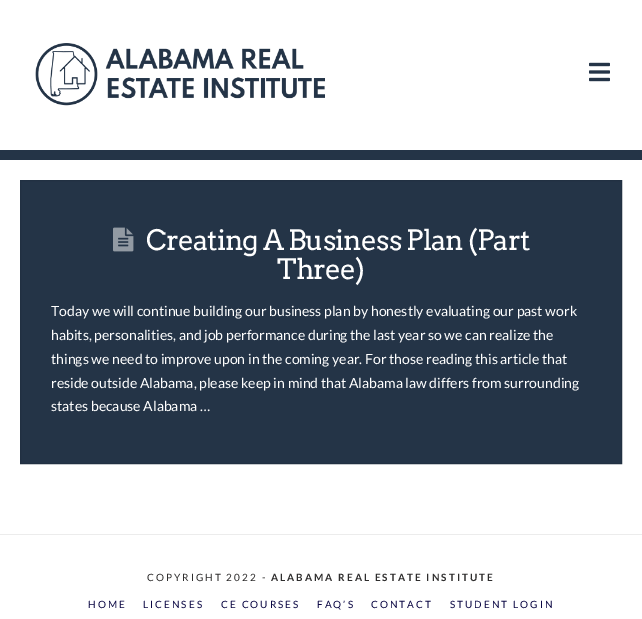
%!PS-Adobe-3.0
%%BoundingBox: 0 0 642 619
%%LanguageLevel: 3
%%Pages: 1
%%EndComments
%%BeginProlog
/setink { 3 { 255 div 3 1 roll } repeat setrgbcolor } def
/usefont { [ exch dup neg 0 0 3 -1 roll 0 0 ] selectfont } def
/drawtext { setink usefont moveto show } def
/fillbox { setink rectfill } def
/drawimage { 5 dict begin { /h /w /y /x /name } { exch def } forall
  gsave x y translate w h scale
  w h 8 [w 0 0 h 0 0] name (r) file false 3 colorimage grestore end } def
%%EndProlog
%%BeginSetup
<< /PageSize [642 619] >> setpagedevice
%%EndSetup
%%Page: 1 1
0 619 translate 1 -1 scale
4 setmiterlimit
0 0 642 619 255 255 255 fillbox
0 150 642 10 36 52 71 fillbox
(assets/img1.rgb) 35 43 290 63 drawimage
(assets/img2.rgb) 589 62 21 20 drawimage
20.5 180.5 moveto 621.5 180.5 lineto 621.5 463.5 lineto 20.5 463.5 lineto closepath gsave fill grestore
33 48 66 setink
stroke
(assets/img3.rgb) 113 227 21 25 drawimage
/Arvo-Regular 28 usefont
255 255 255 setink
146 250 moveto -1 0 (Creating A Business Plan \(Part) ashow
277 279 moveto -1 0 (Three\)) ashow
(Today we will continue building our business plan by honestly evaluating our past work) 51 316 /Lato-Regular 14 255 255 255 drawtext
(habits, personalities, and job performance during the last year so we can realize the) 51 340 /Lato-Regular 14 255 255 255 drawtext
(things we need to improve upon in the coming year. For those reading this article that) 51 364 /Lato-Regular 14 255 255 255 drawtext
(reside outside Alabama, please keep in mind that Alabama law differs from surrounding) 51 388 /Lato-Regular 14 255 255 255 drawtext
(states because Alabama …) 51 411 /Lato-Regular 14 255 255 255 drawtext
0 534 642 1 236 236 236 fillbox
/Lato-Regular 10 usefont
46 45 45 setink
147 581 moveto 2 0 (COPYRIGHT 2022 -) ashow
/Lato-Bold 10 usefont
271 581 moveto 2 0 (ALABAMA REAL ESTATE INSTITUTE) ashow
/Lato-Regular 10 usefont
10 6 67 setink
88 608 moveto 2 0 (HOME) ashow
143 608 moveto 2 0 (LICENSES) ashow
221 608 moveto 2 0 (CE COURSES) ashow
317 608 moveto 2 0 (FAQ’S) ashow
371 608 moveto 2 0 (CONTACT) ashow
450 608 moveto 2 0 (STUDENT LOGIN) ashow
showpage
%%EOF
